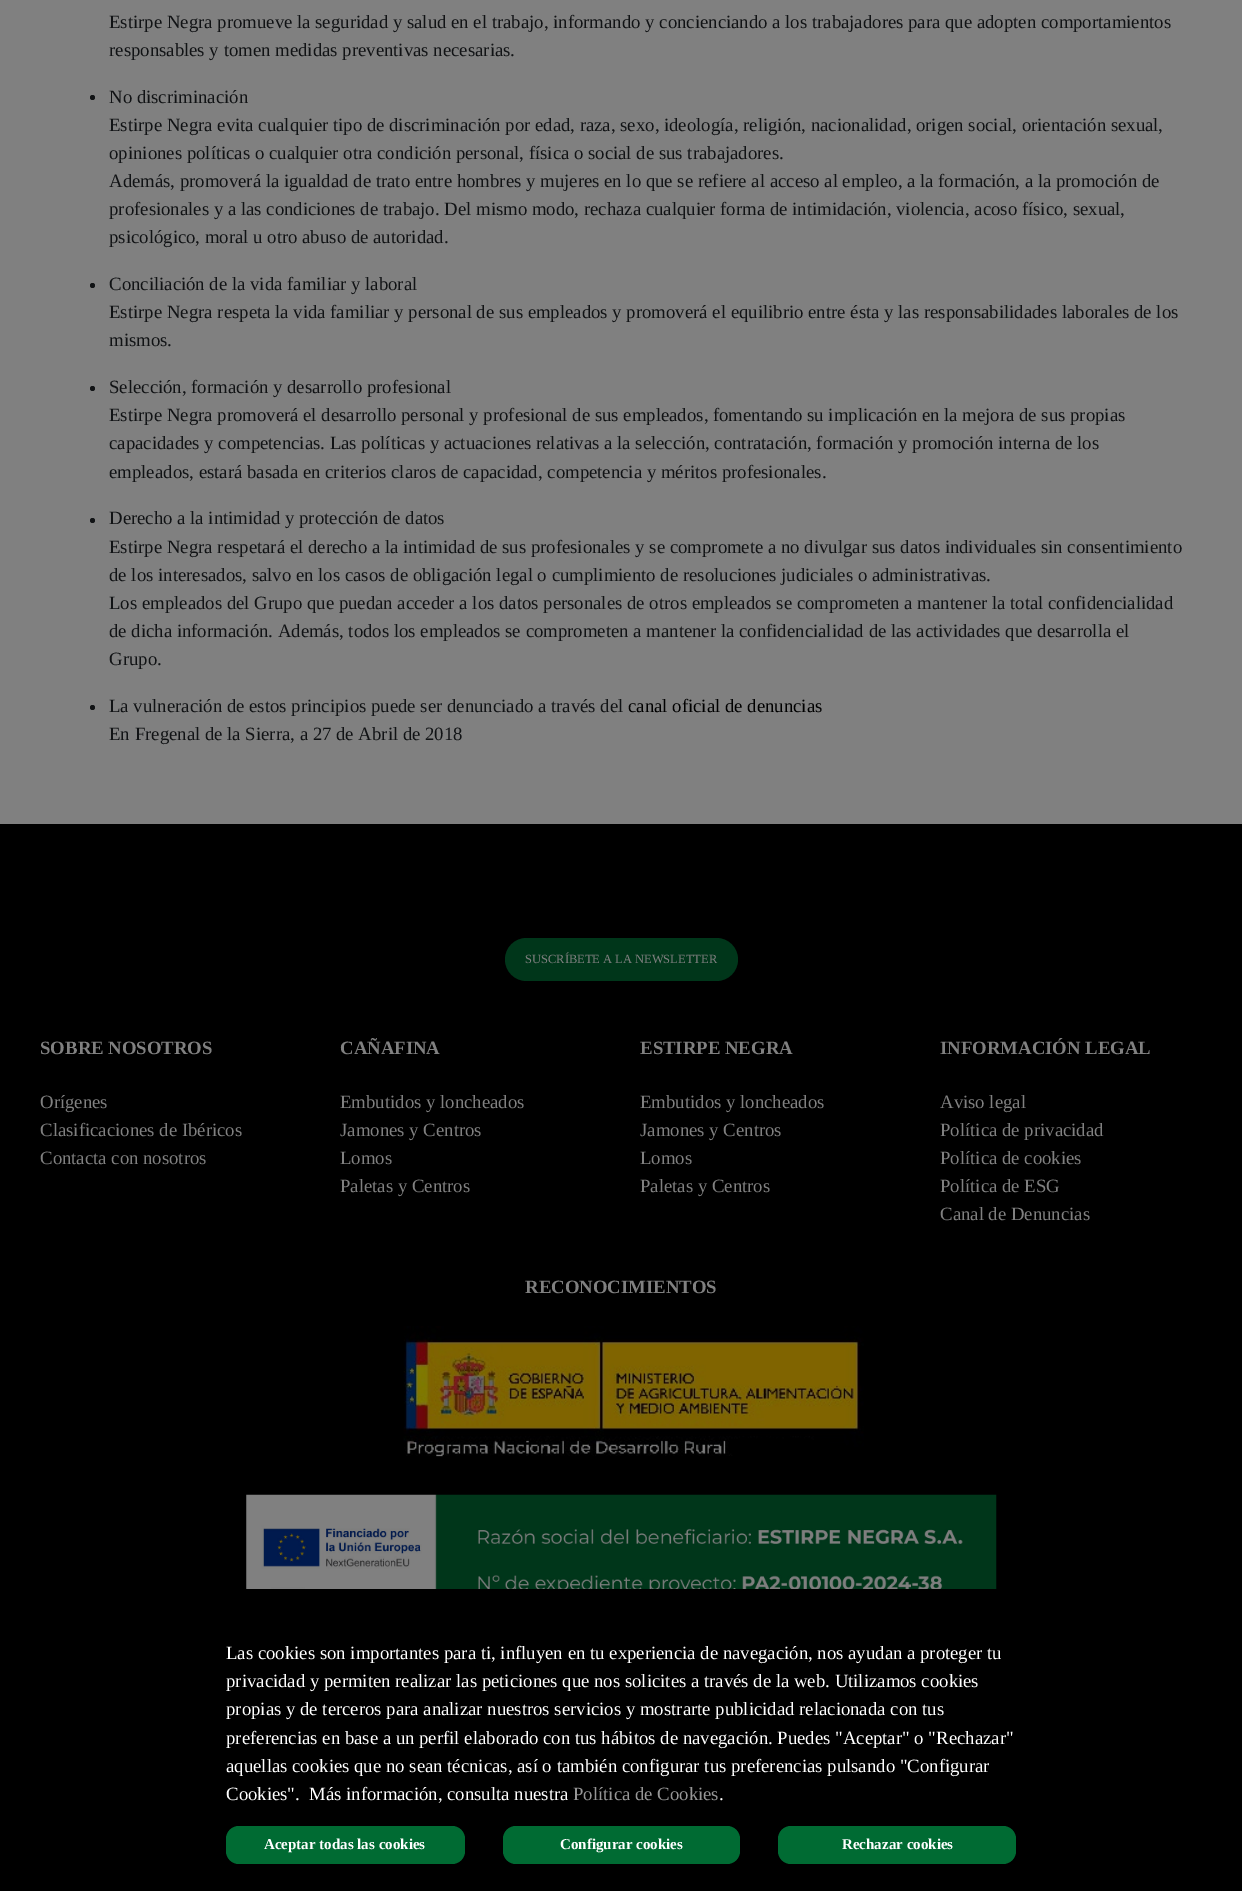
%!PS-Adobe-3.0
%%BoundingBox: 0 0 1242 1891
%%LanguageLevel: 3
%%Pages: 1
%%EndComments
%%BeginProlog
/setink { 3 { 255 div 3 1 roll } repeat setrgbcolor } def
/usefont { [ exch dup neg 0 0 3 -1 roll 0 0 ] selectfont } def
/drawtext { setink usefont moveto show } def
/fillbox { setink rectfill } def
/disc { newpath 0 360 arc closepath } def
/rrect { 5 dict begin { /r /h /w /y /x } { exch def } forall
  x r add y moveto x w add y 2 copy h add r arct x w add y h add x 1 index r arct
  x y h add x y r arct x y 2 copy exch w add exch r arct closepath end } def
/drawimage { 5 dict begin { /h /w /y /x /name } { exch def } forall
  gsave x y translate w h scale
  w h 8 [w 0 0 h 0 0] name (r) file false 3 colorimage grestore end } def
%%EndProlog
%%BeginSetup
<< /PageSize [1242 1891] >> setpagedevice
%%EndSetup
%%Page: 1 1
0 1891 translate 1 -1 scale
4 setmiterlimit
0 0 1242 1891 128 128 128 fillbox
(Estirpe Negra promueve la seguridad y salud en el trabajo, informando y concienciando a los trabajadores para que adopten comportamientos) 109 28 /LiberationSerif-Regular 18.75 17 19 21 drawtext
(responsables y tomen medidas preventivas necesarias.) 109 56 /LiberationSerif-Regular 18.75 17 19 21 drawtext
92.5 97.5 2.5 disc fill
(No discriminación) 109 103 /LiberationSerif-Regular 18.75 17 19 21 drawtext
(Estirpe Negra evita cualquier tipo de discriminación por edad, raza, sexo, ideología, religión, nacionalidad, origen social, orientación sexual,) 109 131 /LiberationSerif-Regular 18.75 17 19 21 drawtext
(opiniones políticas o cualquier otra condición personal, física o social de sus trabajadores.) 109 159 /LiberationSerif-Regular 18.75 17 19 21 drawtext
(Además, promoverá la igualdad de trato entre hombres y mujeres en lo que se refiere al acceso al empleo, a la formación, a la promoción de) 109 187 /LiberationSerif-Regular 18.75 17 19 21 drawtext
(profesionales y a las condiciones de trabajo. Del mismo modo, rechaza cualquier forma de intimidación, violencia, acoso físico, sexual,) 109 215 /LiberationSerif-Regular 18.75 17 19 21 drawtext
(psicológico, moral u otro abuso de autoridad.) 109 243 /LiberationSerif-Regular 18.75 17 19 21 drawtext
92.5 285.5 2.5 disc fill
(Conciliación de la vida familiar y laboral) 109 290 /LiberationSerif-Regular 18.75 17 19 21 drawtext
(Estirpe Negra respeta la vida familiar y personal de sus empleados y promoverá el equilibrio entre ésta y las responsabilidades laborales de los) 109 318 /LiberationSerif-Regular 18.75 17 19 21 drawtext
(mismos.) 109 346 /LiberationSerif-Regular 18.75 17 19 21 drawtext
92.5 388.5 2.5 disc fill
(Selección, formación y desarrollo profesional) 109 393 /LiberationSerif-Regular 18.75 17 19 21 drawtext
(Estirpe Negra promoverá el desarrollo personal y profesional de sus empleados, fomentando su implicación en la mejora de sus propias) 109 421 /LiberationSerif-Regular 18.75 17 19 21 drawtext
(capacidades y competencias. Las políticas y actuaciones relativas a la selección, contratación, formación y promoción interna de los) 109 449 /LiberationSerif-Regular 18.75 17 19 21 drawtext
(empleados, estará basada en criterios claros de capacidad, competencia y méritos profesionales.) 109 478 /LiberationSerif-Regular 18.75 17 19 21 drawtext
92.5 520.5 2.5 disc fill
(Derecho a la intimidad y protección de datos) 109 524 /LiberationSerif-Regular 18.75 17 19 21 drawtext
(Estirpe Negra respetará el derecho a la intimidad de sus profesionales y se compromete a no divulgar sus datos individuales sin consentimiento) 109 553 /LiberationSerif-Regular 18.75 17 19 21 drawtext
(de los interesados, salvo en los casos de obligación legal o cumplimiento de resoluciones judiciales o administrativas.) 109 581 /LiberationSerif-Regular 18.75 17 19 21 drawtext
(Los empleados del Grupo que puedan acceder a los datos personales de otros empleados se comprometen a mantener la total confidencialidad) 109 609 /LiberationSerif-Regular 18.75 17 19 21 drawtext
(de dicha información. Además, todos los empleados se comprometen a mantener la confidencialidad de las actividades que desarrolla el) 109 637 /LiberationSerif-Regular 18.75 17 19 21 drawtext
(Grupo.) 109 665 /LiberationSerif-Regular 18.75 17 19 21 drawtext
92.5 707.5 2.5 disc fill
(La vulneración de estos principios puede ser denunciado a través del) 109 712 /LiberationSerif-Regular 18.75 17 19 21 drawtext
(canal oficial de denuncias) 628 712 /LiberationSerif-Regular 18.75 0 0 0 drawtext
(En Fregenal de la Sierra, a 27 de Abril de 2018) 109 740 /LiberationSerif-Regular 18.75 17 19 21 drawtext
0 824 1242 1067 0 0 0 fillbox
0 54 26 setink
505 938 233 43 21.5 rrect fill
(SUSCRÍBETE A LA NEWSLETTER) 525 963 /LiberationSerif-Regular 12.5 128 128 128 drawtext
(SOBRE NOSOTROS) 40 1054 /LiberationSerif-Bold 18.75 128 128 128 drawtext
(Orígenes) 40 1108 /LiberationSerif-Regular 18.75 128 128 128 drawtext
(Clasificaciones de Ibéricos) 40 1136 /LiberationSerif-Regular 18.75 128 128 128 drawtext
(Contacta con nosotros) 40 1164 /LiberationSerif-Regular 18.75 128 128 128 drawtext
(CAÑAFINA) 340 1054 /LiberationSerif-Bold 18.75 128 128 128 drawtext
(Embutidos y loncheados) 340 1108 /LiberationSerif-Regular 18.75 128 128 128 drawtext
(Jamones y Centros) 340 1136 /LiberationSerif-Regular 18.75 128 128 128 drawtext
(Lomos) 340 1164 /LiberationSerif-Regular 18.75 128 128 128 drawtext
(Paletas y Centros) 340 1192 /LiberationSerif-Regular 18.75 128 128 128 drawtext
(ESTIRPE NEGRA) 640 1054 /LiberationSerif-Bold 18.75 128 128 128 drawtext
(Embutidos y loncheados) 640 1108 /LiberationSerif-Regular 18.75 128 128 128 drawtext
(Jamones y Centros) 640 1136 /LiberationSerif-Regular 18.75 128 128 128 drawtext
(Lomos) 640 1164 /LiberationSerif-Regular 18.75 128 128 128 drawtext
(Paletas y Centros) 640 1192 /LiberationSerif-Regular 18.75 128 128 128 drawtext
(INFORMACIÓN LEGAL) 940 1054 /LiberationSerif-Bold 18.75 128 128 128 drawtext
(Aviso legal) 940 1108 /LiberationSerif-Regular 18.75 128 128 128 drawtext
(Política de privacidad) 940 1136 /LiberationSerif-Regular 18.75 128 128 128 drawtext
(Política de cookies) 940 1164 /LiberationSerif-Regular 18.75 128 128 128 drawtext
(Política de ESG) 940 1192 /LiberationSerif-Regular 18.75 128 128 128 drawtext
(Canal de Denuncias) 940 1220 /LiberationSerif-Regular 18.75 128 128 128 drawtext
(RECONOCIMIENTOS) 525 1293 /LiberationSerif-Bold 18.75 128 128 128 drawtext
(assets/img1.rgb) 403 1326 461 131 drawimage
(assets/img2.rgb) 246 1494 751 95 drawimage
(Las cookies son importantes para ti, influyen en tu experiencia de navegación, nos ayudan a proteger tu) 226 1659 /LiberationSerif-Regular 18.75 255 255 255 drawtext
(privacidad y permiten realizar las peticiones que nos solicites a través de la web. Utilizamos cookies) 226 1687 /LiberationSerif-Regular 18.75 255 255 255 drawtext
(propias y de terceros para analizar nuestros servicios y mostrarte publicidad relacionada con tus) 226 1715 /LiberationSerif-Regular 18.75 255 255 255 drawtext
(preferencias en base a un perfil elaborado con tus hábitos de navegación. Puedes "Aceptar" o "Rechazar") 226 1744 /LiberationSerif-Regular 18.75 255 255 255 drawtext
(aquellas cookies que no sean técnicas, así o también configurar tus preferencias pulsando "Configurar) 226 1772 /LiberationSerif-Regular 18.75 255 255 255 drawtext
(Cookies".  Más información, consulta nuestra) 226 1800 /LiberationSerif-Regular 18.75 255 255 255 drawtext
(Política de Cookies) 573 1800 /LiberationSerif-Regular 18.75 150 150 150 drawtext
(.) 719 1800 /LiberationSerif-Regular 18.75 255 255 255 drawtext
0 107 51 setink
226 1826 239 38 13 rrect fill
(Aceptar todas las cookies) 264 1849 /LiberationSerif-Bold 15 255 255 255 drawtext
0 107 51 setink
503 1826 237 38 13 rrect fill
(Configurar cookies) 560 1849 /LiberationSerif-Bold 15 255 255 255 drawtext
0 107 51 setink
778 1826 238 38 13 rrect fill
(Rechazar cookies) 842 1849 /LiberationSerif-Bold 15 255 255 255 drawtext
showpage
%%EOF
